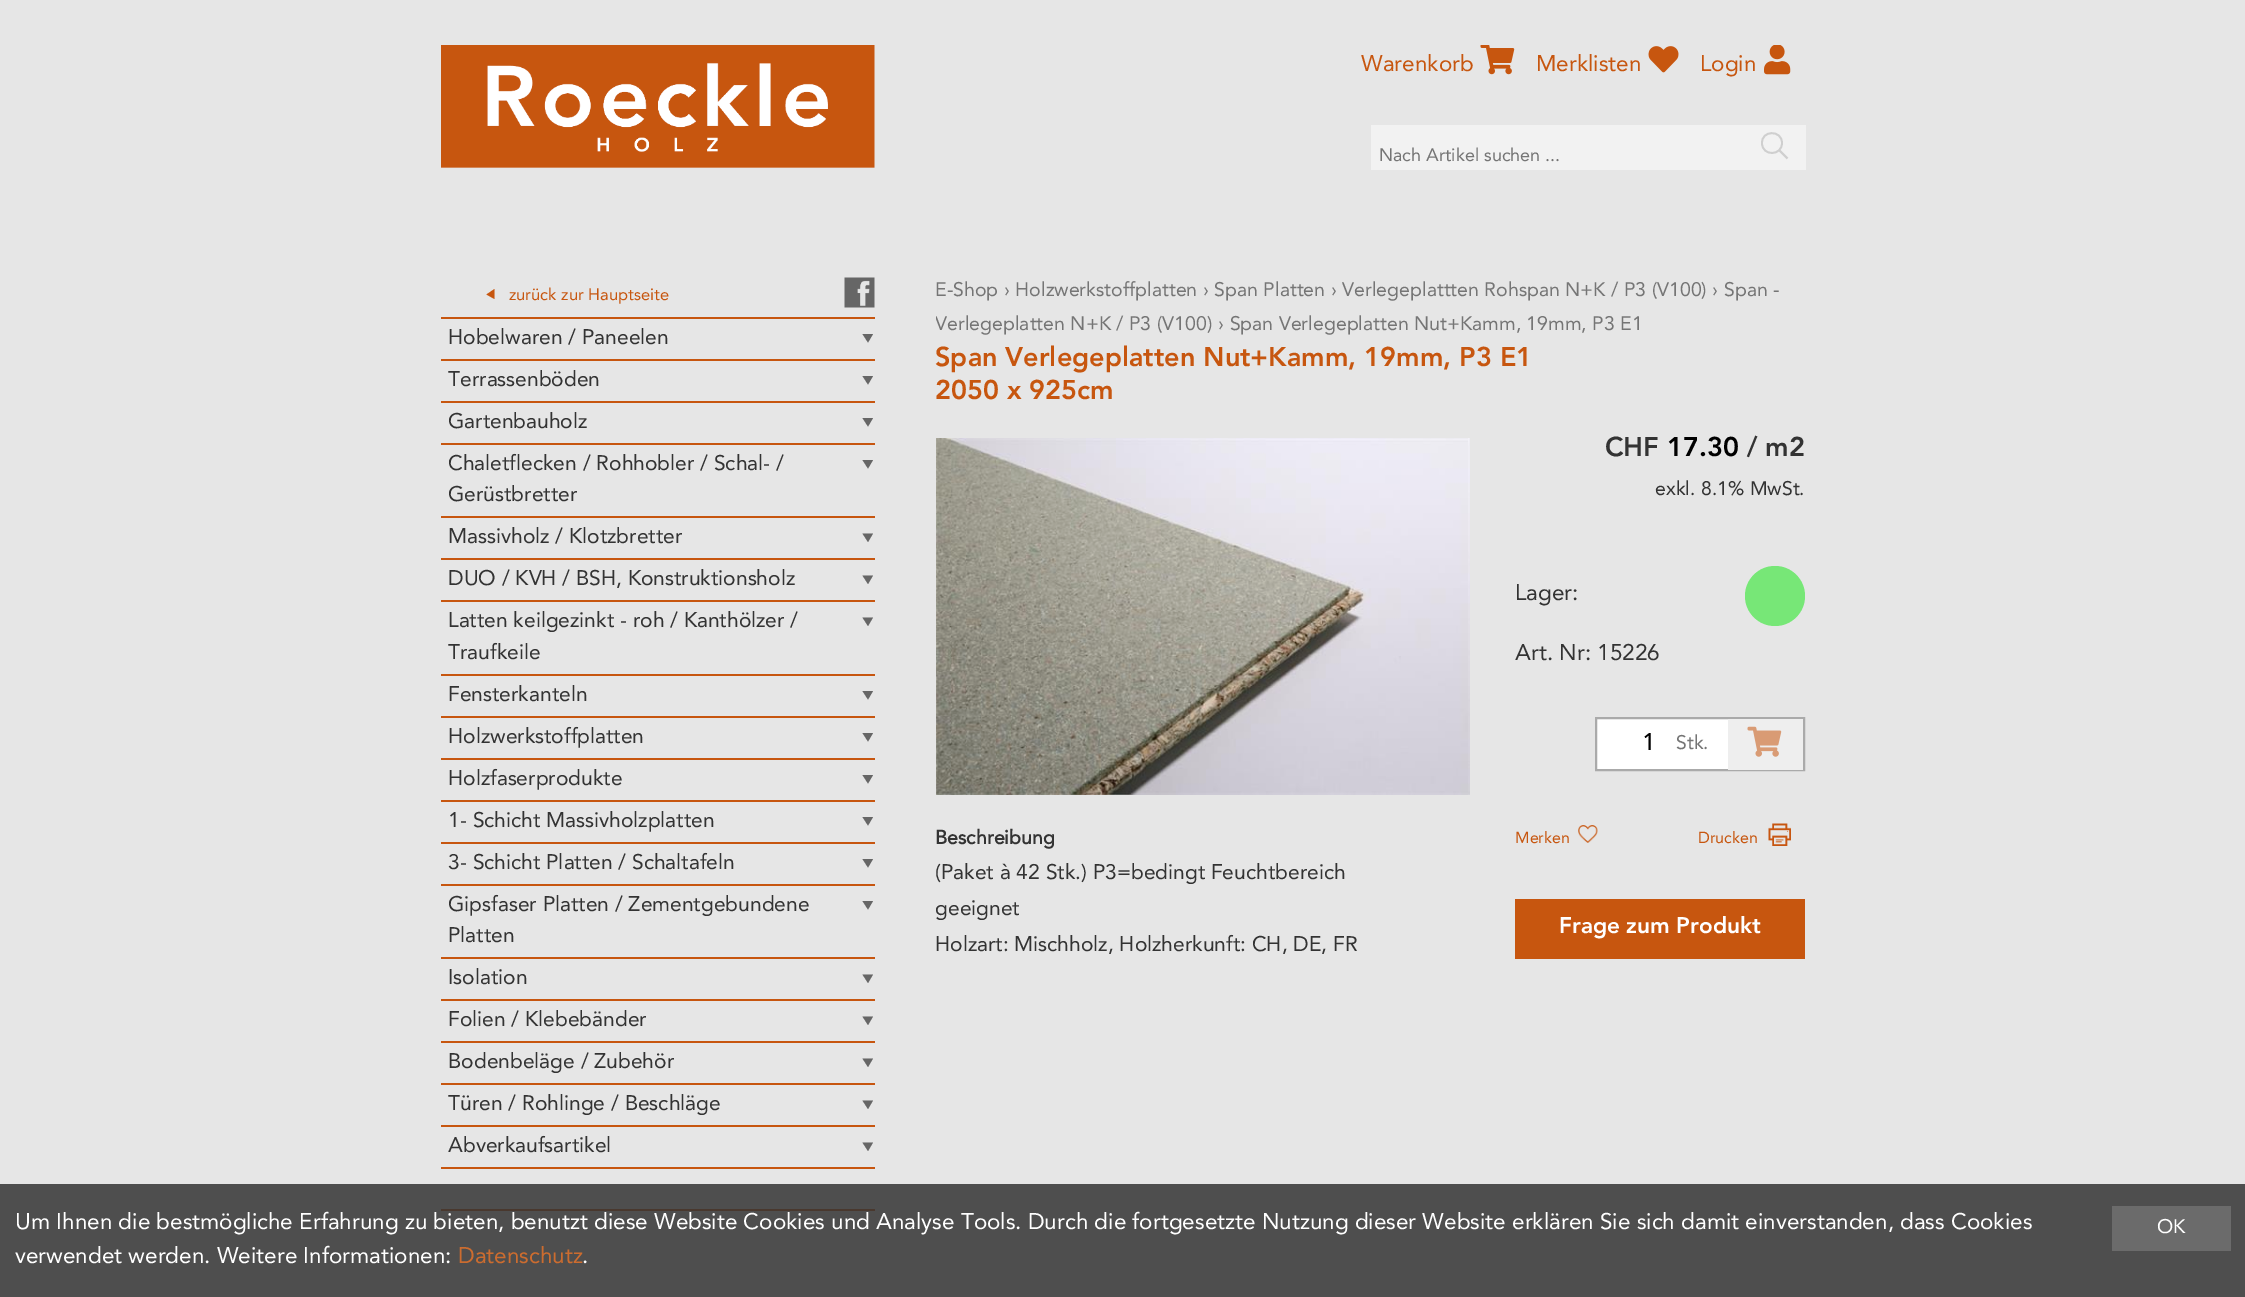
%!PS-Adobe-3.0
%%BoundingBox: 0 0 2245 1297
%%LanguageLevel: 3
%%Pages: 1
%%EndComments
%%BeginProlog
/setink { 3 { 255 div 3 1 roll } repeat setrgbcolor } def
/usefont { [ exch dup neg 0 0 3 -1 roll 0 0 ] selectfont } def
/drawtext { setink usefont moveto show } def
/fillbox { setink rectfill } def
/setalpha { dup .setfillconstantalpha .setstrokeconstantalpha } def
/disc { newpath 0 360 arc closepath } def
/drawimage { 5 dict begin { /h /w /y /x /name } { exch def } forall
  gsave x y translate w h scale
  w h 8 [w 0 0 h 0 0] name (r) file false 3 colorimage grestore end } def
%%EndProlog
%%BeginSetup
<< /PageSize [2245 1297] /PageUsesTransparency true >> setpagedevice
%%EndSetup
%%Page: 1 1
0 .pushpdf14devicefilter
0 1297 translate 1 -1 scale
4 setmiterlimit
0 0 2245 1297 230 230 230 fillbox
(assets/img1.rgb) 441 45 434 123 drawimage
199 86 15 setink
494.5 299 moveto 494.5 289 lineto 486.5 294.5 lineto closepath fill
(zurück zur Hauptseite) 509 300 /Avenir-Regular 16.5 199 86 15 drawtext
(assets/img2.rgb) 844 277 31 31 drawimage
441 317 434 2 199 86 15 fillbox
(Hobelwaren / Paneelen) 448 344 /Avenir-Regular 21 51 51 51 drawtext
102 102 102 setink
873 334 moveto 862.5 334 lineto 868 342.5 lineto closepath fill
441 359 434 2 199 86 15 fillbox
(Terrassenböden) 448 386 /Avenir-Regular 21 51 51 51 drawtext
102 102 102 setink
873 376 moveto 862.5 376 lineto 868 384.5 lineto closepath fill
441 401 434 2 199 86 15 fillbox
(Gartenbauholz) 448 428 /Avenir-Regular 21 51 51 51 drawtext
102 102 102 setink
873 418 moveto 862.5 418 lineto 868 426.5 lineto closepath fill
441 443 434 2 199 86 15 fillbox
(Chaletflecken / Rohhobler / Schal- /) 448 470 /Avenir-Regular 21 51 51 51 drawtext
(Gerüstbretter) 448 501 /Avenir-Regular 21 51 51 51 drawtext
102 102 102 setink
873 460 moveto 862.5 460 lineto 868 468.5 lineto closepath fill
441 516 434 2 199 86 15 fillbox
(Massivholz / Klotzbretter) 448 543 /Avenir-Regular 21 51 51 51 drawtext
102 102 102 setink
873 533.5 moveto 862.5 533.5 lineto 868 542 lineto closepath fill
441 558 434 2 199 86 15 fillbox
(DUO / KVH / BSH, Konstruktionsholz) 448 585 /Avenir-Regular 21 51 51 51 drawtext
102 102 102 setink
873 575.5 moveto 862.5 575.5 lineto 868 584 lineto closepath fill
441 600 434 2 199 86 15 fillbox
(Latten keilgezinkt - roh / Kanthölzer /) 448 627 /Avenir-Regular 21 51 51 51 drawtext
(Traufkeile) 448 659 /Avenir-Regular 21 51 51 51 drawtext
102 102 102 setink
873 617.5 moveto 862.5 617.5 lineto 868 626 lineto closepath fill
441 674 434 2 199 86 15 fillbox
(Fensterkanteln) 448 701 /Avenir-Regular 21 51 51 51 drawtext
102 102 102 setink
873 691 moveto 862.5 691 lineto 868 699.5 lineto closepath fill
441 716 434 2 199 86 15 fillbox
(Holzwerkstoffplatten) 448 743 /Avenir-Regular 21 51 51 51 drawtext
102 102 102 setink
873 733 moveto 862.5 733 lineto 868 741.5 lineto closepath fill
441 758 434 2 199 86 15 fillbox
(Holzfaserprodukte) 448 785 /Avenir-Regular 21 51 51 51 drawtext
102 102 102 setink
873 775 moveto 862.5 775 lineto 868 783.5 lineto closepath fill
441 800 434 2 199 86 15 fillbox
(1- Schicht Massivholzplatten) 448 827 /Avenir-Regular 21 51 51 51 drawtext
102 102 102 setink
873 817 moveto 862.5 817 lineto 868 825.5 lineto closepath fill
441 842 434 2 199 86 15 fillbox
(3- Schicht Platten / Schaltafeln) 448 869 /Avenir-Regular 21 51 51 51 drawtext
102 102 102 setink
873 859 moveto 862.5 859 lineto 868 867.5 lineto closepath fill
441 884 434 2 199 86 15 fillbox
(Gipsfaser Platten / Zementgebundene) 448 911 /Avenir-Regular 21 51 51 51 drawtext
(Platten) 448 942 /Avenir-Regular 21 51 51 51 drawtext
102 102 102 setink
873 901 moveto 862.5 901 lineto 868 909.5 lineto closepath fill
441 957 434 2 199 86 15 fillbox
(Isolation) 448 984 /Avenir-Regular 21 51 51 51 drawtext
102 102 102 setink
873 974.5 moveto 862.5 974.5 lineto 868 983 lineto closepath fill
441 999 434 2 199 86 15 fillbox
(Folien / Klebebänder) 448 1026 /Avenir-Regular 21 51 51 51 drawtext
102 102 102 setink
873 1016.5 moveto 862.5 1016.5 lineto 868 1025 lineto closepath fill
441 1041 434 2 199 86 15 fillbox
(Bodenbeläge / Zubehör) 448 1068 /Avenir-Regular 21 51 51 51 drawtext
102 102 102 setink
873 1058.5 moveto 862.5 1058.5 lineto 868 1067 lineto closepath fill
441 1083 434 2 199 86 15 fillbox
(Türen / Rohlinge / Beschläge) 448 1110 /Avenir-Regular 21 51 51 51 drawtext
102 102 102 setink
873 1100.5 moveto 862.5 1100.5 lineto 868 1109 lineto closepath fill
441 1125 434 2 199 86 15 fillbox
(Abverkaufsartikel) 448 1152 /Avenir-Regular 21 51 51 51 drawtext
102 102 102 setink
873 1142.5 moveto 862.5 1142.5 lineto 868 1151 lineto closepath fill
441 1167 434 2 199 86 15 fillbox
441 1209 434 2 199 86 15 fillbox
(Warenkorb) 1361 71 /Avenir-Regular 22.5 199 86 15 drawtext
(assets/img3.rgb) 1480 45 35 30 drawimage
(Merklisten) 1536 71 /Avenir-Regular 22.5 199 86 15 drawtext
(assets/img4.rgb) 1648 46 31 27 drawimage
(Login) 1700 71 /Avenir-Regular 22.5 199 86 15 drawtext
(assets/img5.rgb) 1764 45 27 30 drawimage
1371 125 435 45 242 242 242 fillbox
(Nach Artikel suchen ...) 1379 161 /Avenir-Regular 18 117 117 117 drawtext
207 207 207 setink
1.8 setlinewidth
1782 143 moveto 1782 156 1762.5 156.5 1762 143.5 curveto 1761 130 1782 129.5 1782 143 curveto closepath 1787.5 158.5 moveto 1779 150 lineto stroke
(E-Shop › Holzwerkstoffplatten › Span Platten › Verlegeplattten Rohspan N+K / P3 \(V100\) › Span -) 935 296 /Avenir-Regular 19.5 117 117 117 drawtext
gsave
936 45 870 297 rectclip
(Verlegeplatten N+K / P3 \(V100\)) 935 330 /Avenir-Regular 19.5 117 117 117 drawtext
grestore
(› Span Verlegeplatten Nut+Kamm, 19mm, P3 E1) 1218 330 /Avenir-Regular 19.5 117 117 117 drawtext
(Span Verlegeplatten Nut+Kamm, 19mm, P3 E1) 935 366 /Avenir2-Regular 27 199 86 15 drawtext
(2050 x 925cm) 935 399 /Avenir2-Regular 27 199 86 15 drawtext
(assets/img6.rgb) 936 438 534 357 drawimage
(Beschreibung) 935 844 /Avenir-Bold 19.5 51 51 51 drawtext
(\(Paket à 42 Stk.\) P3=bedingt Feuchtbereich) 935 879 /Avenir-Regular 21 51 51 51 drawtext
(geeignet) 935 915 /Avenir-Regular 21 51 51 51 drawtext
(Holzart: Mischholz, Holzherkunft: CH, DE, FR) 935 951 /Avenir-Regular 21 51 51 51 drawtext
(CHF) 1605 456 /Avenir2-Regular 27 51 51 51 drawtext
(17.30) 1667 456 /Avenir2-Regular 27 0 0 0 drawtext
(/ m2) 1747 456 /Avenir2-Regular 27 51 51 51 drawtext
(exkl. 8.1% MwSt.) 1655 495 /Avenir-Regular 19.5 51 51 51 drawtext
(Lager:) 1515 600 /Avenir-Regular 22.5 51 51 51 drawtext
119 231 119 setink
1775 596 30 disc fill
(Art. Nr: 15226) 1515 660 /Avenir-Regular 22.5 51 51 51 drawtext
1597 719 131 50 255 255 255 fillbox
170 170 170 setink
2 setlinewidth
1596 718 208 52 rectstroke
(1) 1642 750 /Avenir-Regular 24 0 0 0 drawtext
(Stk.) 1676 749 /Avenir-Regular 19.5 117 117 117 drawtext
1728 719 75 51 238 238 238 fillbox
(assets/img7.rgb) 1747 726 35 31 drawimage
(Merken) 1515 843 /Avenir-Regular 16 199 86 15 drawtext
(assets/img8.rgb) 1578 825 20 18 drawimage
(Drucken) 1698 843 /Avenir-Regular 16 199 86 15 drawtext
(assets/img9.rgb) 1768 823 23 23 drawimage
1515 899 290 60 199 86 15 fillbox
(Frage zum Produkt) 1559 933 /Avenir2-Regular 22.5 255 255 255 drawtext
0.85 setalpha
0 1184 2245 113 51 51 51 fillbox
1 setalpha
(Um Ihnen die bestmögliche Erfahrung zu bieten, benutzt diese Website Cookies und Analyse Tools. Durch die fortgesetzte Nutzung dieser Website erklären Sie sich damit einverstanden, dass Cookies) 15 1229 /Avenir-Regular 22.5 255 255 255 drawtext
2112 1206 119 45 107 107 107 fillbox
(OK) 2157 1233 /Avenir-Regular 19.5 255 255 255 drawtext
(verwendet werden. Weitere Informationen:) 15 1263 /Avenir-Regular 22.5 255 255 255 drawtext
(Datenschutz) 458 1263 /Avenir-Regular 22.5 204 108 47 drawtext
(.) 582 1263 /Avenir-Regular 22.5 255 255 255 drawtext
.poppdf14devicefilter showpage
%%EOF
